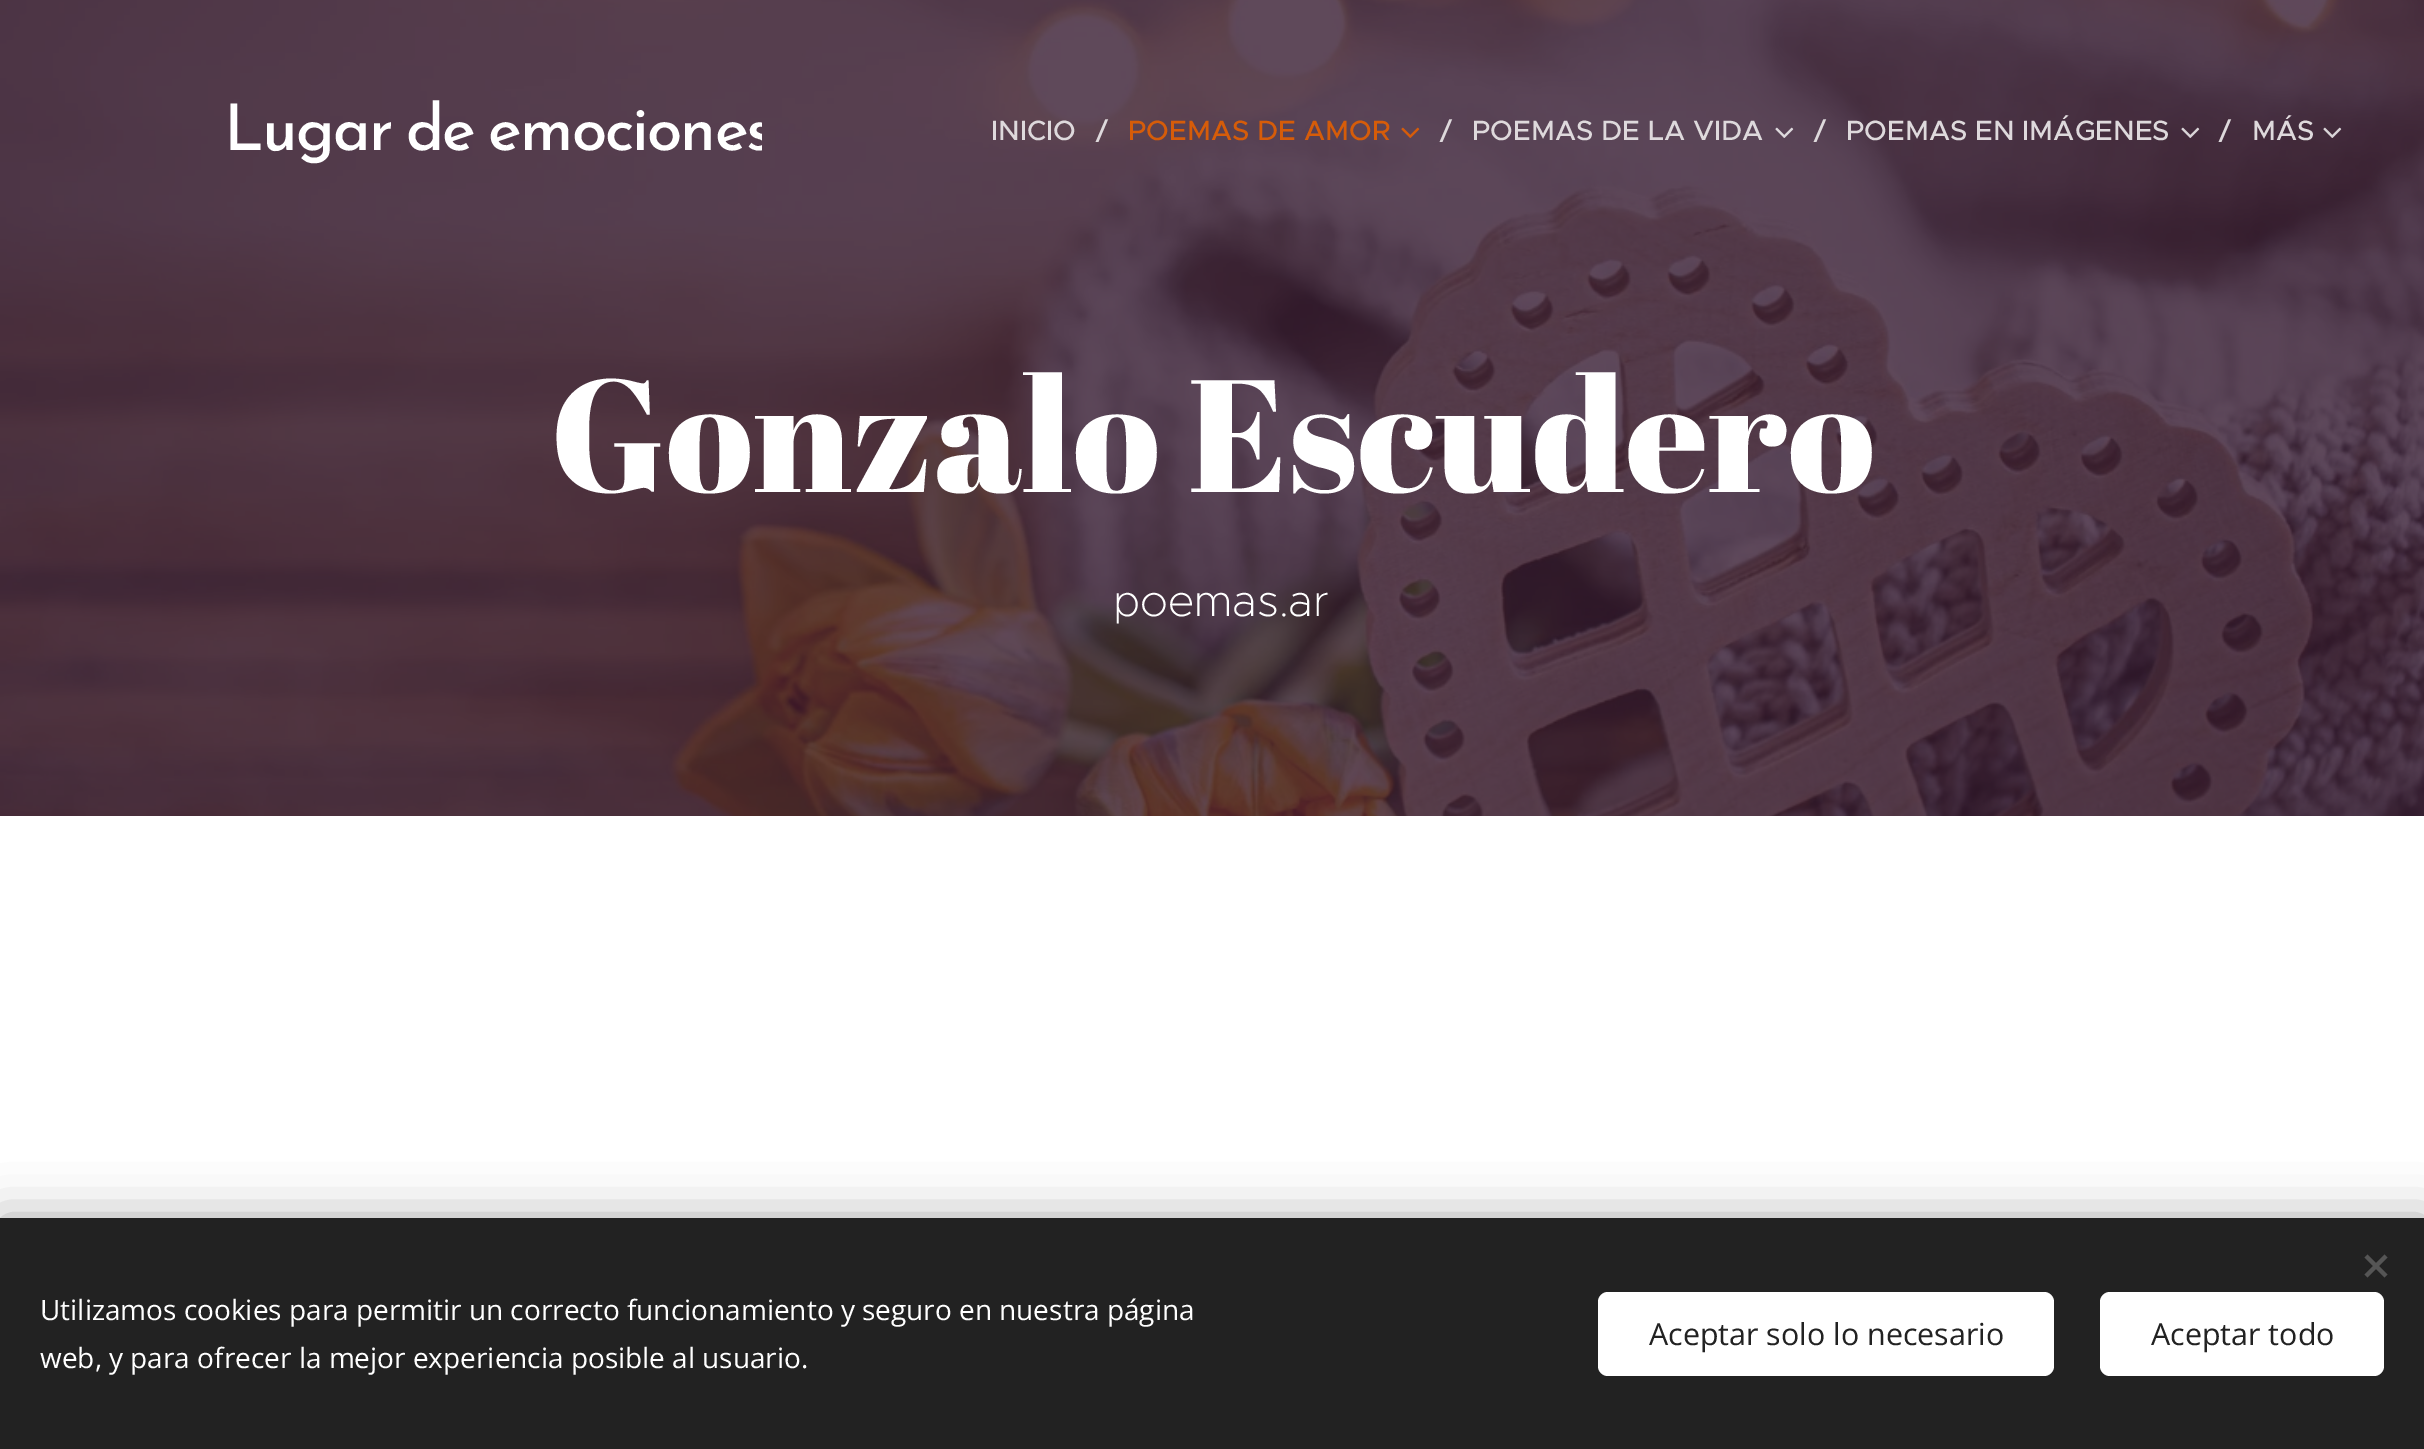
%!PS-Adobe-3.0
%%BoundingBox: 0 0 2424 1449
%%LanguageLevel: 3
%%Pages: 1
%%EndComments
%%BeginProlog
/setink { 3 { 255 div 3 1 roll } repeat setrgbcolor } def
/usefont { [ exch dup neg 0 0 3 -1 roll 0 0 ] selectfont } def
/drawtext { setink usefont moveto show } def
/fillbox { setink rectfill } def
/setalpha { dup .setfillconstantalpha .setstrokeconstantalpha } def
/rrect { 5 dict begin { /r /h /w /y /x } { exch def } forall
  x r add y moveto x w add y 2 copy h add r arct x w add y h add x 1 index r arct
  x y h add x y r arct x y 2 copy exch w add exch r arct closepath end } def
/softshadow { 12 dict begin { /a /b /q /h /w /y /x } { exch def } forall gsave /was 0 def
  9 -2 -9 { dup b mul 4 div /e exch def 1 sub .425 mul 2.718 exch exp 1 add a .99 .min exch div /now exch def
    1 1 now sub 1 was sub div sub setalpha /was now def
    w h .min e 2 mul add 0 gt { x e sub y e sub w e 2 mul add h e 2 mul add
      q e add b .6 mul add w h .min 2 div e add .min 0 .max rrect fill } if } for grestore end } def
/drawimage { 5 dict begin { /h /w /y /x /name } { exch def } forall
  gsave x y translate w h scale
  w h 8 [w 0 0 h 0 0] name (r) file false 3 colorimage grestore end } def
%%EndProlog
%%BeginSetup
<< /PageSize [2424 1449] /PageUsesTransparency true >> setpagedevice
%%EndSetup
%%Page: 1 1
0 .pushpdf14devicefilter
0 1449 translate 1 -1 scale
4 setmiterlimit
0 0 2424 1449 255 255 255 fillbox
(assets/img5.rgb) 0 0 2424 816 drawimage
gsave
210 82 552 96 rectclip
/JosefinSans-Medium 64 usefont
224 150 moveto -4 0 32 -1.9 0 (Lugar de emociones) awidthshow
grestore
(INICIO) 991 140 /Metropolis-Medium 28 222 217 220 drawtext
(/) 1096 140 /Metropolis-Medium 28 222 217 220 drawtext
(POEMAS DE AMOR) 1128 140 /Metropolis-Medium 28 214 92 9 drawtext
(/) 1440 140 /Metropolis-Medium 28 222 217 220 drawtext
(assets/img1.rgb) 1401 127 19 11 drawimage
(POEMAS DE LA VIDA) 1472 140 /Metropolis-Medium 28 222 217 220 drawtext
(/) 1814 140 /Metropolis-Medium 28 222 217 220 drawtext
(assets/img2.rgb) 1775 127 19 11 drawimage
(POEMAS EN IMÁGENES) 1846 140 /Metropolis-Medium 28 222 217 220 drawtext
(/) 2219 140 /Metropolis-Medium 28 222 217 220 drawtext
(assets/img3.rgb) 2181 127 19 11 drawimage
(MÁS) 2252 140 /Metropolis-Medium 28 222 217 220 drawtext
(assets/img4.rgb) 2323 127 19 11 drawimage
(Gonzalo Escudero) 550 492 /AbrilFatface-Regular 160 255 255 255 drawtext
(poemas.ar) 1113 616 /Metropolis-ExtraLight 44 255 255 255 drawtext
0 0 0 setink
0 1218 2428 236 0 25 0.33 softshadow
0 1218 2424 231 34 34 34 fillbox
85 85 85 setink
2364.5 1274.5 moveto 2384.5 1254.5 lineto 2387.5 1257.5 lineto 2367.5 1277.5 lineto closepath fill
2367.5 1254.5 moveto 2387.5 1274.5 lineto 2384.5 1277.5 lineto 2364.5 1257.5 lineto closepath fill
(Utilizamos cookies para permitir un correcto funcionamiento y seguro en nuestra página) 40 1320 /OpenSans-Regular 28 255 255 255 drawtext
(web, y para ofrecer la mejor experiencia posible al usuario.) 40 1368 /OpenSans-Regular 28 255 255 255 drawtext
1598 1292 456 84 10 rrect fill
(Aceptar solo lo necesario) 1649 1345 /OpenSans-Regular 30.4 34 34 34 drawtext
255 255 255 setink
2100 1292 284 84 10 rrect fill
(Aceptar todo) 2151 1345 /OpenSans-Regular 30.4 34 34 34 drawtext
.poppdf14devicefilter showpage
%%EOF
